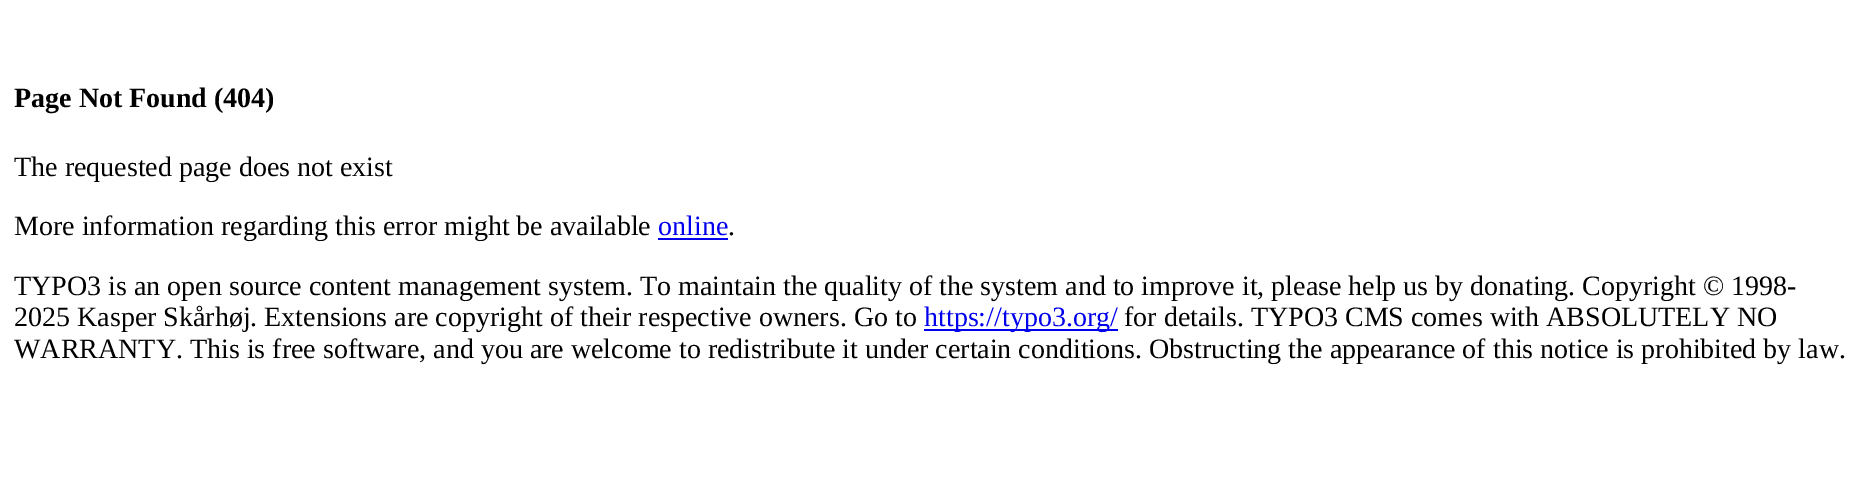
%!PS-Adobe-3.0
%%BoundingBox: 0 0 1865 501
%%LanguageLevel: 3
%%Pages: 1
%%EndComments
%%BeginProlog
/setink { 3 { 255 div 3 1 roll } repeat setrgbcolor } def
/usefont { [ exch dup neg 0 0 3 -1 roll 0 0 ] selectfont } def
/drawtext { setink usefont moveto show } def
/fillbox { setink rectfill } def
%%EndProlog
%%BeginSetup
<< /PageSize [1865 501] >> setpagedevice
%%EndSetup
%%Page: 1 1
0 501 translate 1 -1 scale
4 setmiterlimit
0 0 1865 501 255 255 255 fillbox
(Page Not Found \(404\)) 14 107 /LiberationSerif-Bold 28 0 0 0 drawtext
(The requested page does not exist) 14 176 /LiberationSerif-Regular 28 0 0 0 drawtext
(More information regarding this error might be available) 14 235 /LiberationSerif-Regular 28 0 0 0 drawtext
(online) 658 235 /LiberationSerif-Regular 28 0 0 238 drawtext
658 238 70 2 0 0 238 fillbox
(.) 728 235 /LiberationSerif-Regular 28 0 0 0 drawtext
(TYPO3 is an open source content management system. To maintain the quality of the system and to improve it, please help us by donating. Copyright © 1998-) 14 295 /LiberationSerif-Regular 28 0 0 0 drawtext
(2025 Kasper Skårhøj. Extensions are copyright of their respective owners. Go to) 14 326 /LiberationSerif-Regular 28 0 0 0 drawtext
924 329 194 2 0 0 238 fillbox
(https://typo3.org/) 924 326 /LiberationSerif-Regular 28 0 0 238 drawtext
(for details. TYPO3 CMS comes with ABSOLUTELY NO) 1124 326 /LiberationSerif-Regular 28 0 0 0 drawtext
(WARRANTY. This is free software, and you are welcome to redistribute it under certain conditions. Obstructing the appearance of this notice is prohibited by law.) 14 358 /LiberationSerif-Regular 28 0 0 0 drawtext
showpage
%%EOF
